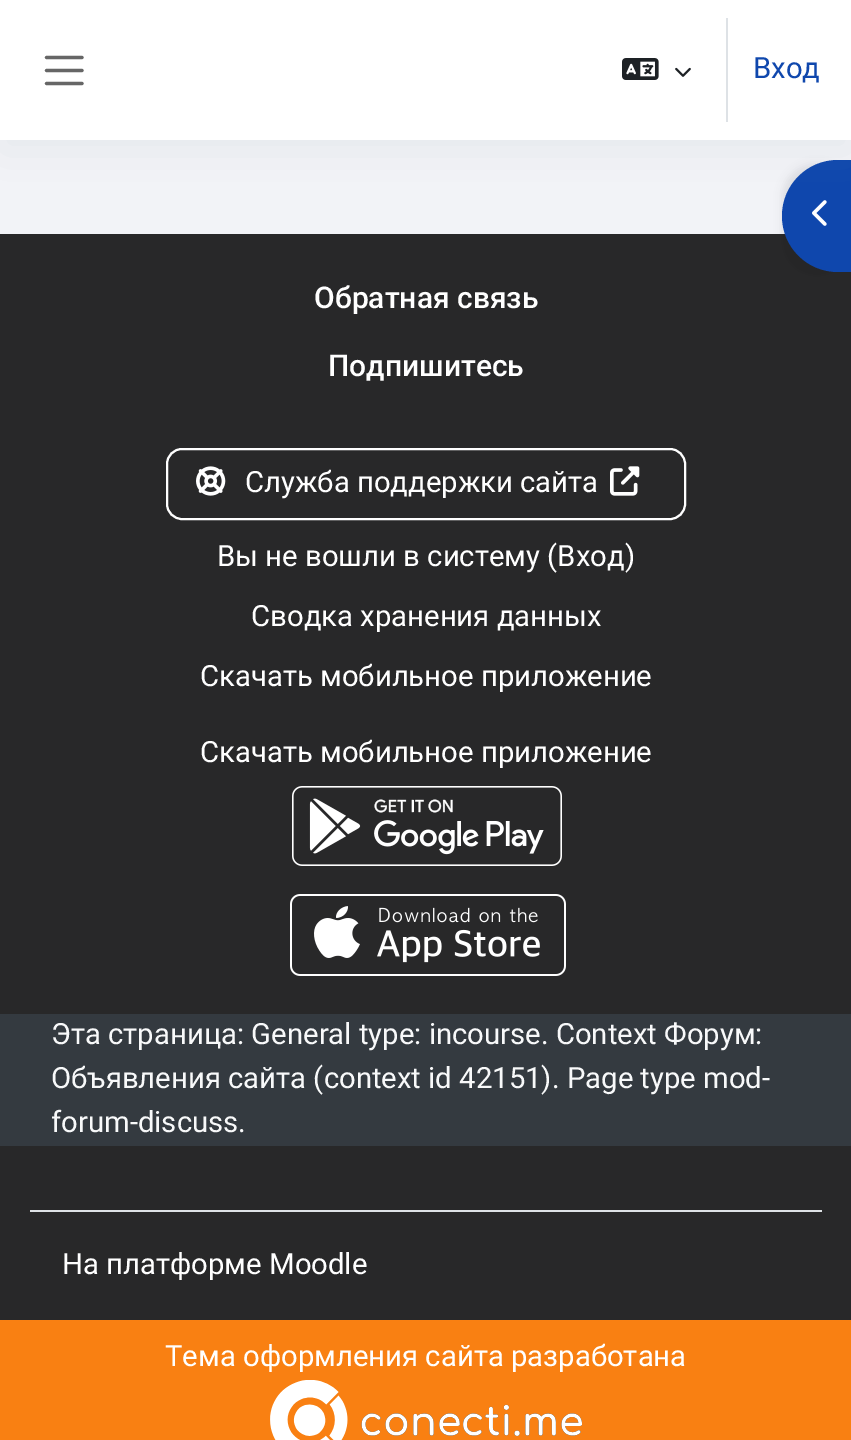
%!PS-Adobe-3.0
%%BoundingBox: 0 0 851 1440
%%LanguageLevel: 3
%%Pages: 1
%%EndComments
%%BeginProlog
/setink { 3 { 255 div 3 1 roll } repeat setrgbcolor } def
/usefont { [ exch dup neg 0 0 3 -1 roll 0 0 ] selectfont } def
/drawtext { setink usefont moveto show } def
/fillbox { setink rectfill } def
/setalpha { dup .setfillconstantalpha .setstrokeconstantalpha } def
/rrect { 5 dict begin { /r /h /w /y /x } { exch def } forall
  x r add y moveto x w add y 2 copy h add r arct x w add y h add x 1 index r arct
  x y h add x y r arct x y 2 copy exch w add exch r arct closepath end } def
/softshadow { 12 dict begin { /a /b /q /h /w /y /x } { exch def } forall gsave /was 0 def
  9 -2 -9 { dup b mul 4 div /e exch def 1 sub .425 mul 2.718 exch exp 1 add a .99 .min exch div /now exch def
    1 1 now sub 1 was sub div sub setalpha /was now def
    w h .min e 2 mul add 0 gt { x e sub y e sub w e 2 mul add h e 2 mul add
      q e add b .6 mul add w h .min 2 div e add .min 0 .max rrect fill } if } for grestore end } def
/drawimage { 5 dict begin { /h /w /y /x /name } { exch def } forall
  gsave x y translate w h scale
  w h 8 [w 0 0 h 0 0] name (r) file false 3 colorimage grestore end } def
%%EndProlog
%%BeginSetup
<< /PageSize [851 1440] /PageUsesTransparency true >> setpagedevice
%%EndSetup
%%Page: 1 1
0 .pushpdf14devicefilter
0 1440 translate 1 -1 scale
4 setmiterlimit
0 0 851 1440 242 243 247 fillbox
0 234 851 1086 40 40 41 fillbox
0 0 0 setink
782 164 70 112 56 4 0.07 softshadow
15 71 173 setink
838 160 moveto 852 160 lineto 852 272 lineto 838 272 lineto 807 272 782 247 782 216 curveto 782 185 807 160 838 160 curveto closepath fill
(assets/img3.rgb) 812 200 15 26 drawimage
140 152 164 setink
0 12 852 140 0 24 0.13 softshadow
0 0 851 140 255 255 255 fillbox
102 102 102 setink
3.2 setlinewidth
1 setlinecap
46.5 57.5 moveto 82 57.5 lineto 46.5 70.5 moveto 82 70.5 lineto 46.5 83.5 moveto 82 83.5 lineto stroke
(assets/img1.rgb) 622 58 37 22 drawimage
(assets/img2.rgb) 675 67 16 10 drawimage
726 18 2 104 222 226 230 fillbox
(Вход) 753 78 /Roboto-Regular 29.3 15 71 173 drawtext
(Обратная связь) 314 308 /Roboto-Medium 30 255 255 255 drawtext
(Подпишитесь) 328 376 /Roboto-Medium 30 255 255 255 drawtext
2 setlinewidth
0 setlinecap
167 449 518 70 15 rrect stroke
(assets/img4.rgb) 196 466 30 30 drawimage
(Служба поддержки сайта) 245 492 /Roboto-Regular 29.3 255 255 255 drawtext
(assets/img5.rgb) 610 466 30 30 drawimage
(Вы не вошли в систему \(Вход\)) 217 566 /Roboto-Regular 29.3 255 255 255 drawtext
(Сводка хранения данных) 251 626 /Roboto-Regular 29.3 255 255 255 drawtext
(Скачать мобильное приложение) 200 686 /Roboto-Regular 29.3 255 255 255 drawtext
(Скачать мобильное приложение) 200 762 /Roboto-Regular 29.3 255 255 255 drawtext
(assets/img6.rgb) 292 786 270 80 drawimage
(assets/img7.rgb) 290 894 276 82 drawimage
0 1014 851 132 52 58 64 fillbox
(Эта страница: General type: incourse. Context Форум:) 51 1044 /Roboto-Regular 29.3 248 249 250 drawtext
(Объявления сайта \(context id 42151\). Page type mod-) 51 1088 /Roboto-Regular 29.3 248 249 250 drawtext
(forum-discuss.) 51 1132 /Roboto-Regular 29.3 248 249 250 drawtext
30 1210 792 2 222 226 230 fillbox
(На платформе Moodle) 62 1274 /Roboto-Regular 29.3 255 255 255 drawtext
0 1320 851 120 249 128 18 fillbox
(Тема оформления сайта разработана) 165 1366 /Roboto-Regular 29.3 255 255 255 drawtext
(assets/img8.rgb) 270 1380 312 60 drawimage
.poppdf14devicefilter showpage
%%EOF
